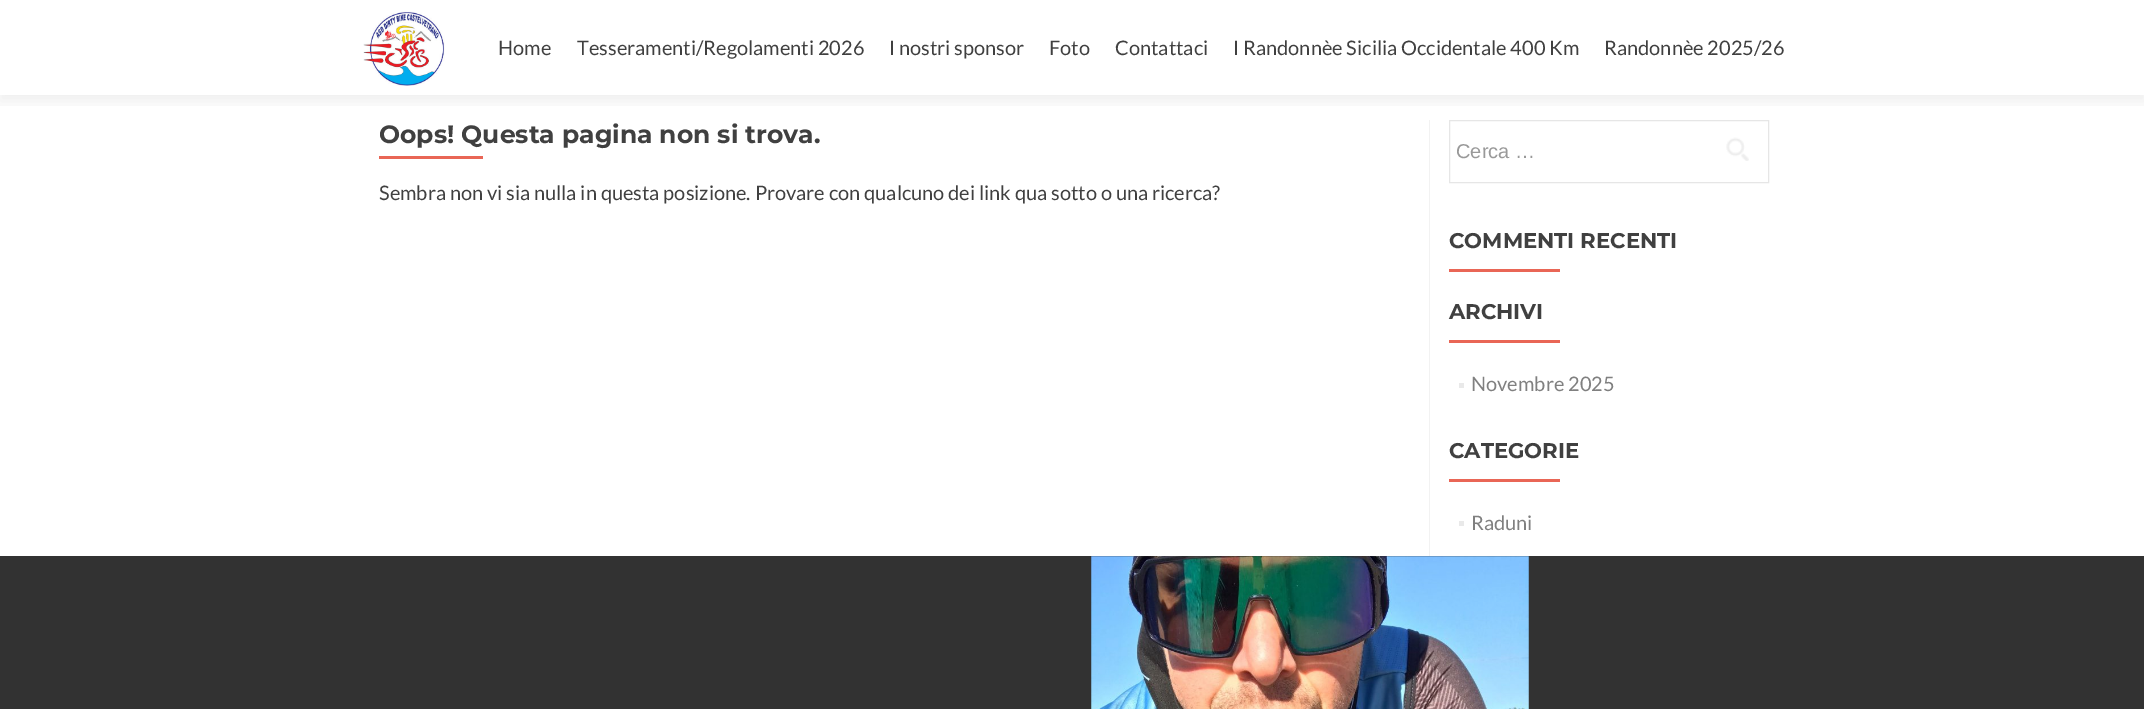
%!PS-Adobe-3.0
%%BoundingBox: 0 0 2144 709
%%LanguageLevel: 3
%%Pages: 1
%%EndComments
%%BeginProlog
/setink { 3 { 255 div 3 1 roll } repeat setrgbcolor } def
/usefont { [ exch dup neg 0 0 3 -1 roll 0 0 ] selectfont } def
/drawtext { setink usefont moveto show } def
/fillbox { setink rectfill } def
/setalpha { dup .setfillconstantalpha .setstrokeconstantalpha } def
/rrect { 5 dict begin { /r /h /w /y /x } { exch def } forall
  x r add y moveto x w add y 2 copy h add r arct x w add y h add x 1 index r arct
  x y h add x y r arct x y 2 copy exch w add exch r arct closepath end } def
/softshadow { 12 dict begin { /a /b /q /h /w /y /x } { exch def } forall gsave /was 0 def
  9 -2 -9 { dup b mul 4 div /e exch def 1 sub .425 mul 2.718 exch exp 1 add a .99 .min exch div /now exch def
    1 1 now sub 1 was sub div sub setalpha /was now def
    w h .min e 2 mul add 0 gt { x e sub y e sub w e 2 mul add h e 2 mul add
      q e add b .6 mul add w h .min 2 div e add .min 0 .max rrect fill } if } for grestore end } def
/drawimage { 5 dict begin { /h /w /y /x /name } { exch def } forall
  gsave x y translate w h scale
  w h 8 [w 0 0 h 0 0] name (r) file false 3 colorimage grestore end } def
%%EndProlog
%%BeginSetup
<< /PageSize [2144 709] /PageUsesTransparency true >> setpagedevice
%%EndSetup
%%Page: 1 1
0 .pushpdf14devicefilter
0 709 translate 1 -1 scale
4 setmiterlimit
0 0 2144 709 255 255 255 fillbox
1429 120 1 436 242 242 242 fillbox
230 230 230 setink
1449.5 120.5 319 62 rectstroke
gsave
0 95 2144 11 rectclip
50 50 50 setink
0 6 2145 95 0 7 0.08 softshadow
grestore
(assets/img1.rgb) 363 11 82 75 drawimage
(Home) 498 55 /Lato-Regular 20 64 64 64 drawtext
(Tesseramenti/Regolamenti 2026) 577 55 /Lato-Regular 20 64 64 64 drawtext
(I nostri sponsor) 889 55 /Lato-Regular 20 64 64 64 drawtext
(Foto) 1049 55 /Lato-Regular 20 64 64 64 drawtext
(Contattaci) 1115 55 /Lato-Regular 20 64 64 64 drawtext
(I Randonnèe Sicilia Occidentale 400 Km) 1233 55 /Lato-Regular 20 64 64 64 drawtext
(Randonnèe 2025/26) 1604 55 /Lato-Regular 20 64 64 64 drawtext
(Oops! Questa pagina non si trova.) 379 143 /Montserrat-Bold 25 64 64 64 drawtext
379 156 104 3 233 102 86 fillbox
(Sembra non vi sia nulla in questa posizione. Provare con qualcuno dei link qua sotto o una ricerca?) 379 200 /Lato-Regular 20 64 64 64 drawtext
(Cerca …) 1456 158 /LiberationSans-Regular 20 153 153 153 drawtext
(assets/img2.rgb) 1726 137 23 24 drawimage
(COMMENTI RECENTI) 1449 248 /Montserrat-Bold 21.25 64 64 64 drawtext
1449 269 111 3 233 102 86 fillbox
(ARCHIVI) 1449 319 /Montserrat-Bold 21.25 64 64 64 drawtext
1449 340 111 3 233 102 86 fillbox
1459 383 5 5 233 233 233 fillbox
(Novembre 2025) 1471 391 /Lato-Regular 20 128 128 128 drawtext
(CATEGORIE) 1449 458 /Montserrat-Bold 21.25 64 64 64 drawtext
1449 479 111 3 233 102 86 fillbox
1459 521 5 5 233 233 233 fillbox
(Raduni) 1471 530 /Lato-Regular 20 128 128 128 drawtext
0 556 2144 153 50 50 50 fillbox
(assets/img3.rgb) 1091 556 438 153 drawimage
.poppdf14devicefilter showpage
%%EOF
